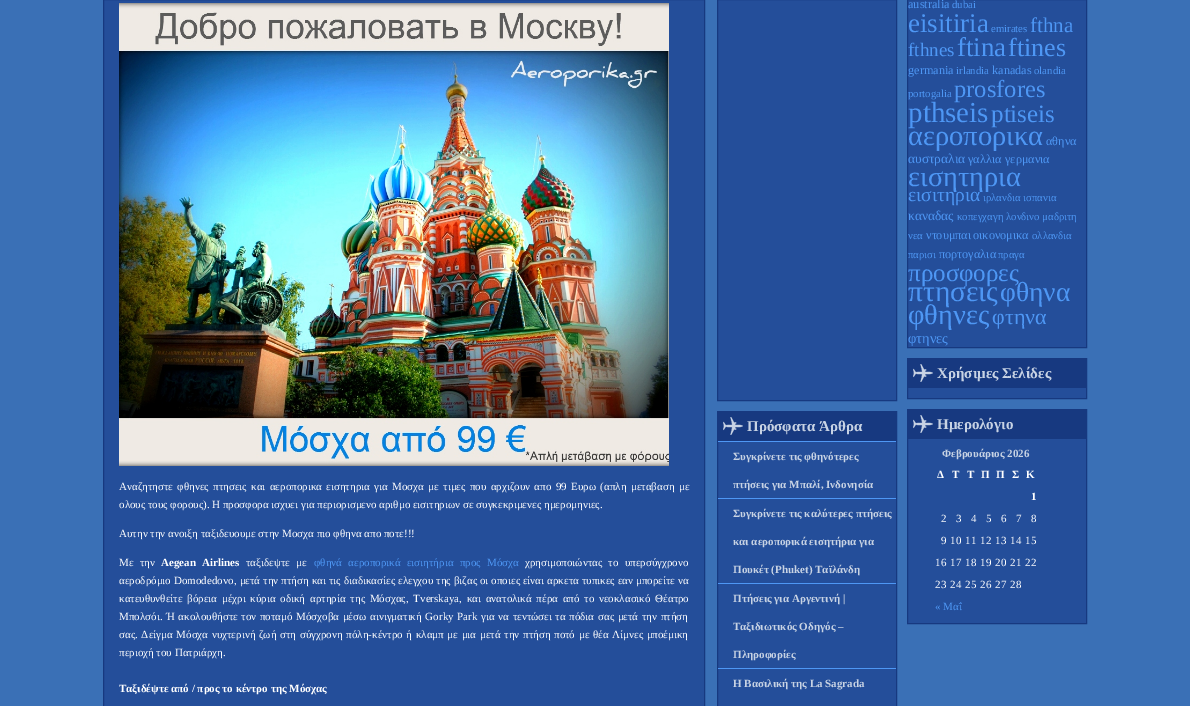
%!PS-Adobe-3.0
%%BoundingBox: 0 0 1190 706
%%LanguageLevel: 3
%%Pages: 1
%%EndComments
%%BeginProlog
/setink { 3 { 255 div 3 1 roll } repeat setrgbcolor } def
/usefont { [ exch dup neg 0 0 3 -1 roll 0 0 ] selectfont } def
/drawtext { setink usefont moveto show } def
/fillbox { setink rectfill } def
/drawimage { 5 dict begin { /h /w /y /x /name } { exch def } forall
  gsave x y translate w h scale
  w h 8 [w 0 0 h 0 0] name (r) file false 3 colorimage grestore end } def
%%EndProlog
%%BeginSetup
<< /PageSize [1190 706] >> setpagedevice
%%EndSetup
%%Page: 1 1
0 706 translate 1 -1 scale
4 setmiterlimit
0 0 1190 706 58 112 182 fillbox
36 78 154 setink
103.5 -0.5 moveto 704.5 -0.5 lineto 704.5 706.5 lineto 103.5 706.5 lineto closepath gsave fill grestore
23 57 128 setink
stroke
(assets/img1.rgb) 119 3 550 463 drawimage
/LiberationSerif-Regular 11 usefont
255 255 255 setink
119 490 moveto 1.6 0 32 (Αναζητηστε φθηνες πτησεις και αεροπορικα εισητηρια για Μοσχα με τιμες που αρχιζουν απο 99 Ευρω \(απλη μεταβαση με) widthshow
(ολους τους φορους\). Η προσφορα ισχυει για περιορισμενο αριθμο εισιτηριων σε συγκεκριμενες ημερομηνιες.) 119 508 /LiberationSerif-Regular 11 255 255 255 drawtext
(Αυτην την ανοιξη ταξιδευουμε στην Μοσχα πιο φθηνα απο ποτε!!!) 119 537 /LiberationSerif-Regular 11 255 255 255 drawtext
119 566 moveto 3.5 0 32 (Με την) widthshow
/LiberationSerif-Bold 11 usefont
161 566 moveto 3.5 0 32 (Aegean Airlines) widthshow
/LiberationSerif-Regular 11 usefont
246 566 moveto 3.5 0 32 (ταξιδεψτε με) widthshow
78 151 244 setink
314 566 moveto 3.5 0 32 (φθηνά αεροπορικά εισιητήρια προς Μόσχα) widthshow
255 255 255 setink
525 566 moveto 3.5 0 32 (χρησιμοποιώντας το υπερσύγχρονο) widthshow
119 584 moveto 0.25 0 32 (αεροδρόμιο Domodedovo, μετά την πτήση και τις διαδικασίες ελεγχου της βιζας οι οποιες είναι αρκετα τυπικες εαν μπορείτε να) widthshow
119 602 moveto 2 0 32 (κατευθυνθείτε βόρεια μέχρι κύρια οδική αρτηρία της Μόσχας, Tverskaya, και ανατολικά πέρα από το νεοκλασικό Θέατρο) widthshow
119 620 moveto 0.9 0 32 (Μπολσόι. Ή ακολουθήστε τον ποταμό Μόσχοβα μέσω αινιγματική Gorky Park για να τεντώσει τα πόδια σας μετά την πτήση) widthshow
119 638 moveto 0.9 0 32 (σας. Δείγμα Μόσχα νυχτερινή ζωή στη σύγχρονη πόλη-κέντρο ή κλαμπ με μια μετά την πτήση ποτό με θέα Λίμνες μποέμικη) widthshow
(περιοχή του Πατριάρχη.) 119 656 /LiberationSerif-Regular 11 255 255 255 drawtext
(Ταξιδέψτε από / προς το κέντρο της Μόσχας) 119 692 /LiberationSerif-Bold 11 255 255 255 drawtext
36 78 154 setink
717.5 -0.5 moveto 896.5 -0.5 lineto 896.5 400.5 lineto 717.5 400.5 lineto closepath gsave fill grestore
23 57 128 setink
stroke
718 442 178 264 36 78 154 fillbox
23 57 128 setink
717.5 411.5 179 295 rectstroke
718 412 178 29 23 57 128 fillbox
(assets/img2.rgb) 723 417 20 18 drawimage
(Πρόσφατα Άρθρα) 747 431 /LiberationSerif-Bold 15 200 211 228 drawtext
718 441 178 1 78 151 244 fillbox
(Συγκρίνετε τις φθηνότερες) 733 460 /LiberationSerif-Bold 11 200 211 228 drawtext
(πτήσεις για Μπαλί, Ινδονησία) 733 488 /LiberationSerif-Bold 11 200 211 228 drawtext
718 498 178 1 78 151 244 fillbox
(Συγκρίνετε τις καλύτερες πτήσεις) 733 517 /LiberationSerif-Bold 11 200 211 228 drawtext
(και αεροπορικά εισητήρια για) 733 545 /LiberationSerif-Bold 11 200 211 228 drawtext
(Πουκέτ \(Phuket\) Ταϊλάνδη) 733 573 /LiberationSerif-Bold 11 200 211 228 drawtext
718 583 178 1 78 151 244 fillbox
(Πτήσεις για Αργεντινή |) 733 602 /LiberationSerif-Bold 11 200 211 228 drawtext
(Ταξιδιωτικός Οδηγός –) 733 630 /LiberationSerif-Bold 11 200 211 228 drawtext
(Πληροφορίες) 733 658 /LiberationSerif-Bold 11 200 211 228 drawtext
718 668 178 1 78 151 244 fillbox
(Η Βασιλική της La Sagrada) 733 687 /LiberationSerif-Bold 11 200 211 228 drawtext
36 78 154 setink
907.5 -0.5 moveto 1086.5 -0.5 lineto 1086.5 347.5 lineto 907.5 347.5 lineto closepath gsave fill grestore
23 57 128 setink
stroke
(australia) 908 8 /LiberationSerif-Regular 12.25 78 151 244 drawtext
(dubai) 952 8 /LiberationSerif-Regular 10.75 78 151 244 drawtext
(eisitiria) 908 32 /LiberationSerif-Regular 27 78 151 244 drawtext
(emirates) 991 32 /LiberationSerif-Regular 10.75 78 151 244 drawtext
(fthna) 1030 32 /LiberationSerif-Regular 21 78 151 244 drawtext
(fthnes) 908 56 /LiberationSerif-Regular 19 78 151 244 drawtext
(ftina) 957 56 /LiberationSerif-Regular 27 78 151 244 drawtext
(ftines) 1008 56 /LiberationSerif-Regular 26 78 151 244 drawtext
(germania) 908 74 /LiberationSerif-Regular 12.25 78 151 244 drawtext
(irlandia) 956 74 /LiberationSerif-Regular 10.75 78 151 244 drawtext
(kanadas) 992 74 /LiberationSerif-Regular 12.25 78 151 244 drawtext
(olandia) 1034 74 /LiberationSerif-Regular 10.75 78 151 244 drawtext
(portogalia) 908 97 /LiberationSerif-Regular 10.75 78 151 244 drawtext
(prosfores) 954 97 /LiberationSerif-Regular 24.5 78 151 244 drawtext
(pthseis) 908 122 /LiberationSerif-Regular 29 78 151 244 drawtext
(ptiseis) 991 122 /LiberationSerif-Regular 25 78 151 244 drawtext
(αεροπορικα) 908 145 /LiberationSerif-Regular 28.5 78 151 244 drawtext
(αθηνα) 1046 145 /LiberationSerif-Regular 12.25 78 151 244 drawtext
(αυστραλια) 908 163 /LiberationSerif-Regular 13.5 78 151 244 drawtext
(γαλλια) 968 163 /LiberationSerif-Regular 12.25 78 151 244 drawtext
(γερμανια) 1005 163 /LiberationSerif-Regular 12.25 78 151 244 drawtext
(εισητηρια) 908 186 /LiberationSerif-Regular 28.5 78 151 244 drawtext
(εισιτηρια) 908 201 /LiberationSerif-Regular 19.5 78 151 244 drawtext
(ιρλανδια ισπανια) 983 201 /LiberationSerif-Regular 10.75 78 151 244 drawtext
(καναδας) 908 220 /LiberationSerif-Regular 13.5 78 151 244 drawtext
(κοπεγχαγη λονδινο μαδριτη) 957 220 /LiberationSerif-Regular 10.75 78 151 244 drawtext
(νεα) 908 239 /LiberationSerif-Regular 10.75 78 151 244 drawtext
(ντουμπαι) 926 239 /LiberationSerif-Regular 12.25 78 151 244 drawtext
(οικονομικα) 973 239 /LiberationSerif-Regular 12.25 78 151 244 drawtext
(ολλανδια) 1032 239 /LiberationSerif-Regular 10.75 78 151 244 drawtext
(παρισι) 908 258 /LiberationSerif-Regular 10.75 78 151 244 drawtext
(πορτογαλια) 939 258 /LiberationSerif-Regular 12.25 78 151 244 drawtext
(πραγα) 998 258 /LiberationSerif-Regular 10.75 78 151 244 drawtext
(προσφορες) 908 281 /LiberationSerif-Regular 25 78 151 244 drawtext
(πτησεις) 908 301 /LiberationSerif-Regular 29.5 78 151 244 drawtext
(φθηνα) 1000 301 /LiberationSerif-Regular 27.5 78 151 244 drawtext
(φθηνες) 908 324 /LiberationSerif-Regular 28.5 78 151 244 drawtext
(φτηνα) 992 324 /LiberationSerif-Regular 22 78 151 244 drawtext
(φτηνες) 908 343 /LiberationSerif-Regular 14.5 78 151 244 drawtext
908 388 178 10 36 78 154 fillbox
23 57 128 setink
907.5 358.5 179 40 rectstroke
908 359 178 29 23 57 128 fillbox
(assets/img2.rgb) 913 364 20 18 drawimage
(Χρήσιμες Σελίδες) 937 378 /LiberationSerif-Bold 15 200 211 228 drawtext
908 439 178 184 36 78 154 fillbox
23 57 128 setink
907.5 409.5 179 214 rectstroke
908 410 178 29 23 57 128 fillbox
(assets/img2.rgb) 913 415 20 18 drawimage
(Ημερολόγιο) 937 429 /LiberationSerif-Bold 15 200 211 228 drawtext
(Φεβρουάριος 2026) 942 457 /LiberationSerif-Bold 11 200 211 228 drawtext
(Δ) 937 478 /LiberationSerif-Bold 11 255 255 255 drawtext
(Τ) 952 478 /LiberationSerif-Bold 11 255 255 255 drawtext
(Τ) 967 478 /LiberationSerif-Bold 11 255 255 255 drawtext
(Π) 981 478 /LiberationSerif-Bold 11 255 255 255 drawtext
(Π) 996 478 /LiberationSerif-Bold 11 255 255 255 drawtext
(Σ) 1012 478 /LiberationSerif-Bold 11 255 255 255 drawtext
(Κ) 1026 478 /LiberationSerif-Bold 11 255 255 255 drawtext
(1) 1031 500 /LiberationSerif-Bold 11 255 255 255 drawtext
(2) 941 522 /LiberationSerif-Regular 11 255 255 255 drawtext
(3) 956 522 /LiberationSerif-Regular 11 255 255 255 drawtext
(4) 971 522 /LiberationSerif-Regular 11 255 255 255 drawtext
(5) 986 522 /LiberationSerif-Regular 11 255 255 255 drawtext
(6) 1001 522 /LiberationSerif-Regular 11 255 255 255 drawtext
(7) 1016 522 /LiberationSerif-Regular 11 255 255 255 drawtext
(8) 1031 522 /LiberationSerif-Regular 11 255 255 255 drawtext
(9) 941 544 /LiberationSerif-Regular 11 255 255 255 drawtext
(10) 950 544 /LiberationSerif-Regular 11 255 255 255 drawtext
(11) 965 544 /LiberationSerif-Regular 11 255 255 255 drawtext
(12) 980 544 /LiberationSerif-Regular 11 255 255 255 drawtext
(13) 995 544 /LiberationSerif-Regular 11 255 255 255 drawtext
(14) 1010 544 /LiberationSerif-Regular 11 255 255 255 drawtext
(15) 1025 544 /LiberationSerif-Regular 11 255 255 255 drawtext
(16) 935 566 /LiberationSerif-Regular 11 255 255 255 drawtext
(17) 950 566 /LiberationSerif-Regular 11 255 255 255 drawtext
(18) 965 566 /LiberationSerif-Regular 11 255 255 255 drawtext
(19) 980 566 /LiberationSerif-Regular 11 255 255 255 drawtext
(20) 995 566 /LiberationSerif-Regular 11 255 255 255 drawtext
(21) 1010 566 /LiberationSerif-Regular 11 255 255 255 drawtext
(22) 1025 566 /LiberationSerif-Regular 11 255 255 255 drawtext
(23) 935 588 /LiberationSerif-Regular 11 255 255 255 drawtext
(24) 950 588 /LiberationSerif-Regular 11 255 255 255 drawtext
(25) 965 588 /LiberationSerif-Regular 11 255 255 255 drawtext
(26) 980 588 /LiberationSerif-Regular 11 255 255 255 drawtext
(27) 995 588 /LiberationSerif-Regular 11 255 255 255 drawtext
(28) 1010 588 /LiberationSerif-Regular 11 255 255 255 drawtext
(« Μαΐ) 935 610 /LiberationSerif-Regular 11 78 151 244 drawtext
showpage
%%EOF
